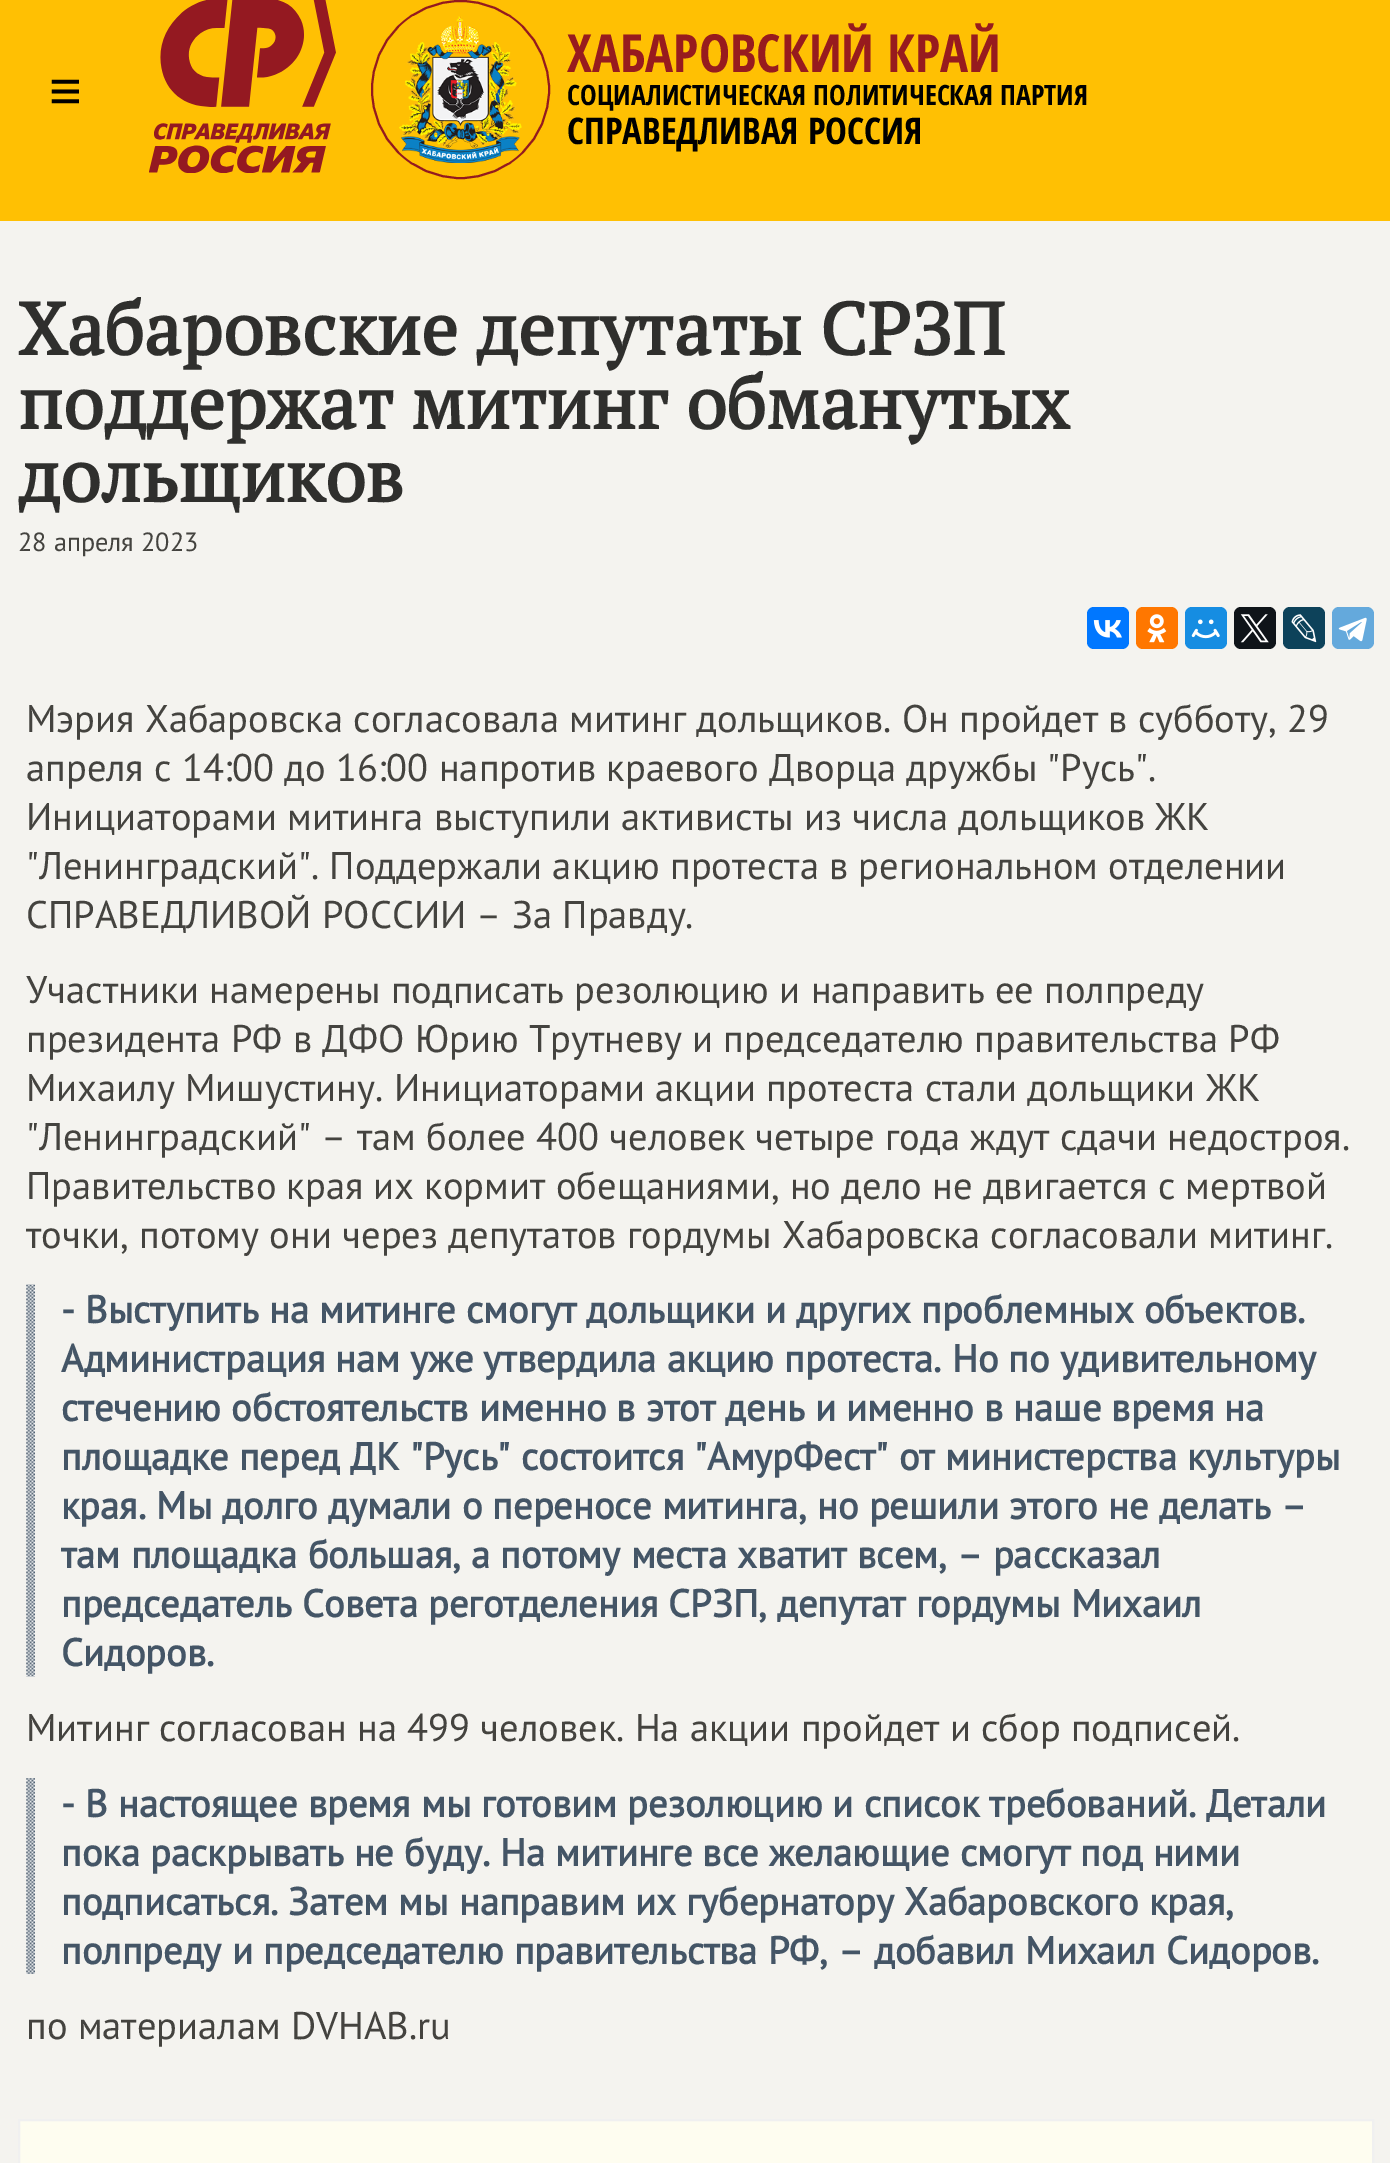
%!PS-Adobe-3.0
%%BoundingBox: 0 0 1390 2163
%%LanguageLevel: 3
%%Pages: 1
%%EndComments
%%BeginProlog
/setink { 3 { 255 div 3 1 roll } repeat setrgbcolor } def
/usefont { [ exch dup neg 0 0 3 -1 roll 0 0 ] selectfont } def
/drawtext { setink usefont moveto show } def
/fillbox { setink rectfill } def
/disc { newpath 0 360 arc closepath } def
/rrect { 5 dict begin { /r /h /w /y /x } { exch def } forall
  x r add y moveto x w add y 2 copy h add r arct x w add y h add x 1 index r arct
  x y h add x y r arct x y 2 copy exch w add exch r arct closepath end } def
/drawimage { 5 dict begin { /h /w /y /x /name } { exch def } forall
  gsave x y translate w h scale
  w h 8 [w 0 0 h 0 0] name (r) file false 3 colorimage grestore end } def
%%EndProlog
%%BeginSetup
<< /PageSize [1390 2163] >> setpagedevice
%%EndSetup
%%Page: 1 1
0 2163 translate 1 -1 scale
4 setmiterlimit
0 0 1390 2163 244 243 239 fillbox
0 0 1390 221 255 192 3 fillbox
(≡) 49 110 /LiberationSans-Regular 56 0 0 0 drawtext
(assets/img1.rgb) 149 0 187 173 drawimage
148 26 31 setink
2 setlinewidth
460.5 89.5 88.5 disc stroke
(assets/img2.rgb) 399 16 123 147 drawimage
(ХАБАРОВСКИЙ КРАЙ) 567 72 /OpenSansCondensed-Bold 52.5 151 27 30 drawtext
(СОЦИАЛИСТИЧЕСКАЯ ПОЛИТИЧЕСКАЯ ПАРТИЯ) 567 105 /OpenSansCondensed-Bold 28 0 0 0 drawtext
(СПРАВЕДЛИВАЯ РОССИЯ) 567 144 /OpenSansCondensed-Bold 36.75 0 0 0 drawtext
(Хабаровские депутаты СРЗП) 18 355 /PTSerif-Bold 73.5 47 47 45 drawtext
(поддержат митинг обманутых) 18 429 /PTSerif-Bold 73.5 47 47 45 drawtext
(дольщиков) 18 502 /PTSerif-Bold 73.5 47 47 45 drawtext
(28 апреля 2023) 18 551 /PTSans-Regular 26.25 68 67 63 drawtext
0 119 255 setink
1087 607 42 42 7 rrect fill
(assets/img3.rgb) 1093 620 29 18 drawimage
255 119 0 setink
1136 607 42 42 7 rrect fill
(assets/img4.rgb) 1147 614 20 29 drawimage
22 141 226 setink
1185 607 42 42 7 rrect fill
(assets/img5.rgb) 1191 619 29 20 drawimage
15 20 25 setink
1234 607 42 42 7 rrect fill
(assets/img6.rgb) 1240 614 29 29 drawimage
13 66 90 setink
1283 607 42 42 7 rrect fill
(assets/img7.rgb) 1291 614 26 29 drawimage
100 169 220 setink
1332 607 42 42 7 rrect fill
(assets/img8.rgb) 1338 617 29 25 drawimage
(Мэрия Хабаровска согласовала митинг дольщиков. Он пройдет в субботу, 29) 26 732 /PTSans-Regular 38.5 68 67 63 drawtext
(апреля с 14:00 до 16:00 напротив краевого Дворца дружбы "Русь".) 26 781 /PTSans-Regular 38.5 68 67 63 drawtext
(Инициаторами митинга выступили активисты из числа дольщиков ЖК) 26 830 /PTSans-Regular 38.5 68 67 63 drawtext
("Ленинградский". Поддержали акцию протеста в региональном отделении) 26 879 /PTSans-Regular 38.5 68 67 63 drawtext
(СПРАВЕДЛИВОЙ РОССИИ – За Правду.) 26 928 /PTSans-Regular 38.5 68 67 63 drawtext
(Участники намерены подписать резолюцию и направить ее полпреду) 26 1003 /PTSans-Regular 38.5 68 67 63 drawtext
(президента РФ в ДФО Юрию Трутневу и председателю правительства РФ) 26 1052 /PTSans-Regular 38.5 68 67 63 drawtext
(Михаилу Мишустину. Инициаторами акции протеста стали дольщики ЖК) 26 1101 /PTSans-Regular 38.5 68 67 63 drawtext
("Ленинградский" – там более 400 человек четыре года ждут сдачи недостроя.) 26 1150 /PTSans-Regular 38.5 68 67 63 drawtext
(Правительство края их кормит обещаниями, но дело не двигается с мертвой) 26 1199 /PTSans-Regular 38.5 68 67 63 drawtext
(точки, потому они через депутатов гордумы Хабаровска согласовали митинг.) 26 1248 /PTSans-Regular 38.5 68 67 63 drawtext
(assets/img9.rgb) 26 1284 9 393 drawimage
(- Выступить на митинге смогут дольщики и других проблемных объектов.) 61 1323 /PTSans-Bold 38.5 68 85 102 drawtext
(Администрация нам уже утвердила акцию протеста. Но по удивительному) 61 1372 /PTSans-Bold 38.5 68 85 102 drawtext
(стечению обстоятельств именно в этот день и именно в наше время на) 61 1421 /PTSans-Bold 38.5 68 85 102 drawtext
(площадке перед ДК "Русь" состоится "АмурФест" от министерства культуры) 61 1470 /PTSans-Bold 38.5 68 85 102 drawtext
(края. Мы долго думали о переносе митинга, но решили этого не делать –) 61 1519 /PTSans-Bold 38.5 68 85 102 drawtext
(там площадка большая, а потому места хватит всем, – рассказал) 61 1568 /PTSans-Bold 38.5 68 85 102 drawtext
(председатель Совета реготделения СРЗП, депутат гордумы Михаил) 61 1617 /PTSans-Bold 38.5 68 85 102 drawtext
(Сидоров.) 61 1666 /PTSans-Bold 38.5 68 85 102 drawtext
(Митинг согласован на 499 человек. На акции пройдет и сбор подписей.) 26 1741 /PTSans-Regular 38.5 68 67 63 drawtext
(assets/img10.rgb) 26 1778 9 196 drawimage
(- В настоящее время мы готовим резолюцию и список требований. Детали) 61 1817 /PTSans-Bold 38.5 68 85 102 drawtext
(пока раскрывать не буду. На митинге все желающие смогут под ними) 61 1866 /PTSans-Bold 38.5 68 85 102 drawtext
(подписаться. Затем мы направим их губернатору Хабаровского края,) 61 1915 /PTSans-Bold 38.5 68 85 102 drawtext
(полпреду и председателю правительства РФ, – добавил Михаил Сидоров.) 61 1964 /PTSans-Bold 38.5 68 85 102 drawtext
(по материалам DVHAB.ru) 26 2039 /PTSans-Regular 38.5 68 67 63 drawtext
254 253 240 setink
19 2120 moveto 1373 2120 lineto 1373 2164 lineto 19 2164 lineto closepath gsave fill grestore
240 240 240 setink
stroke
showpage
%%EOF
